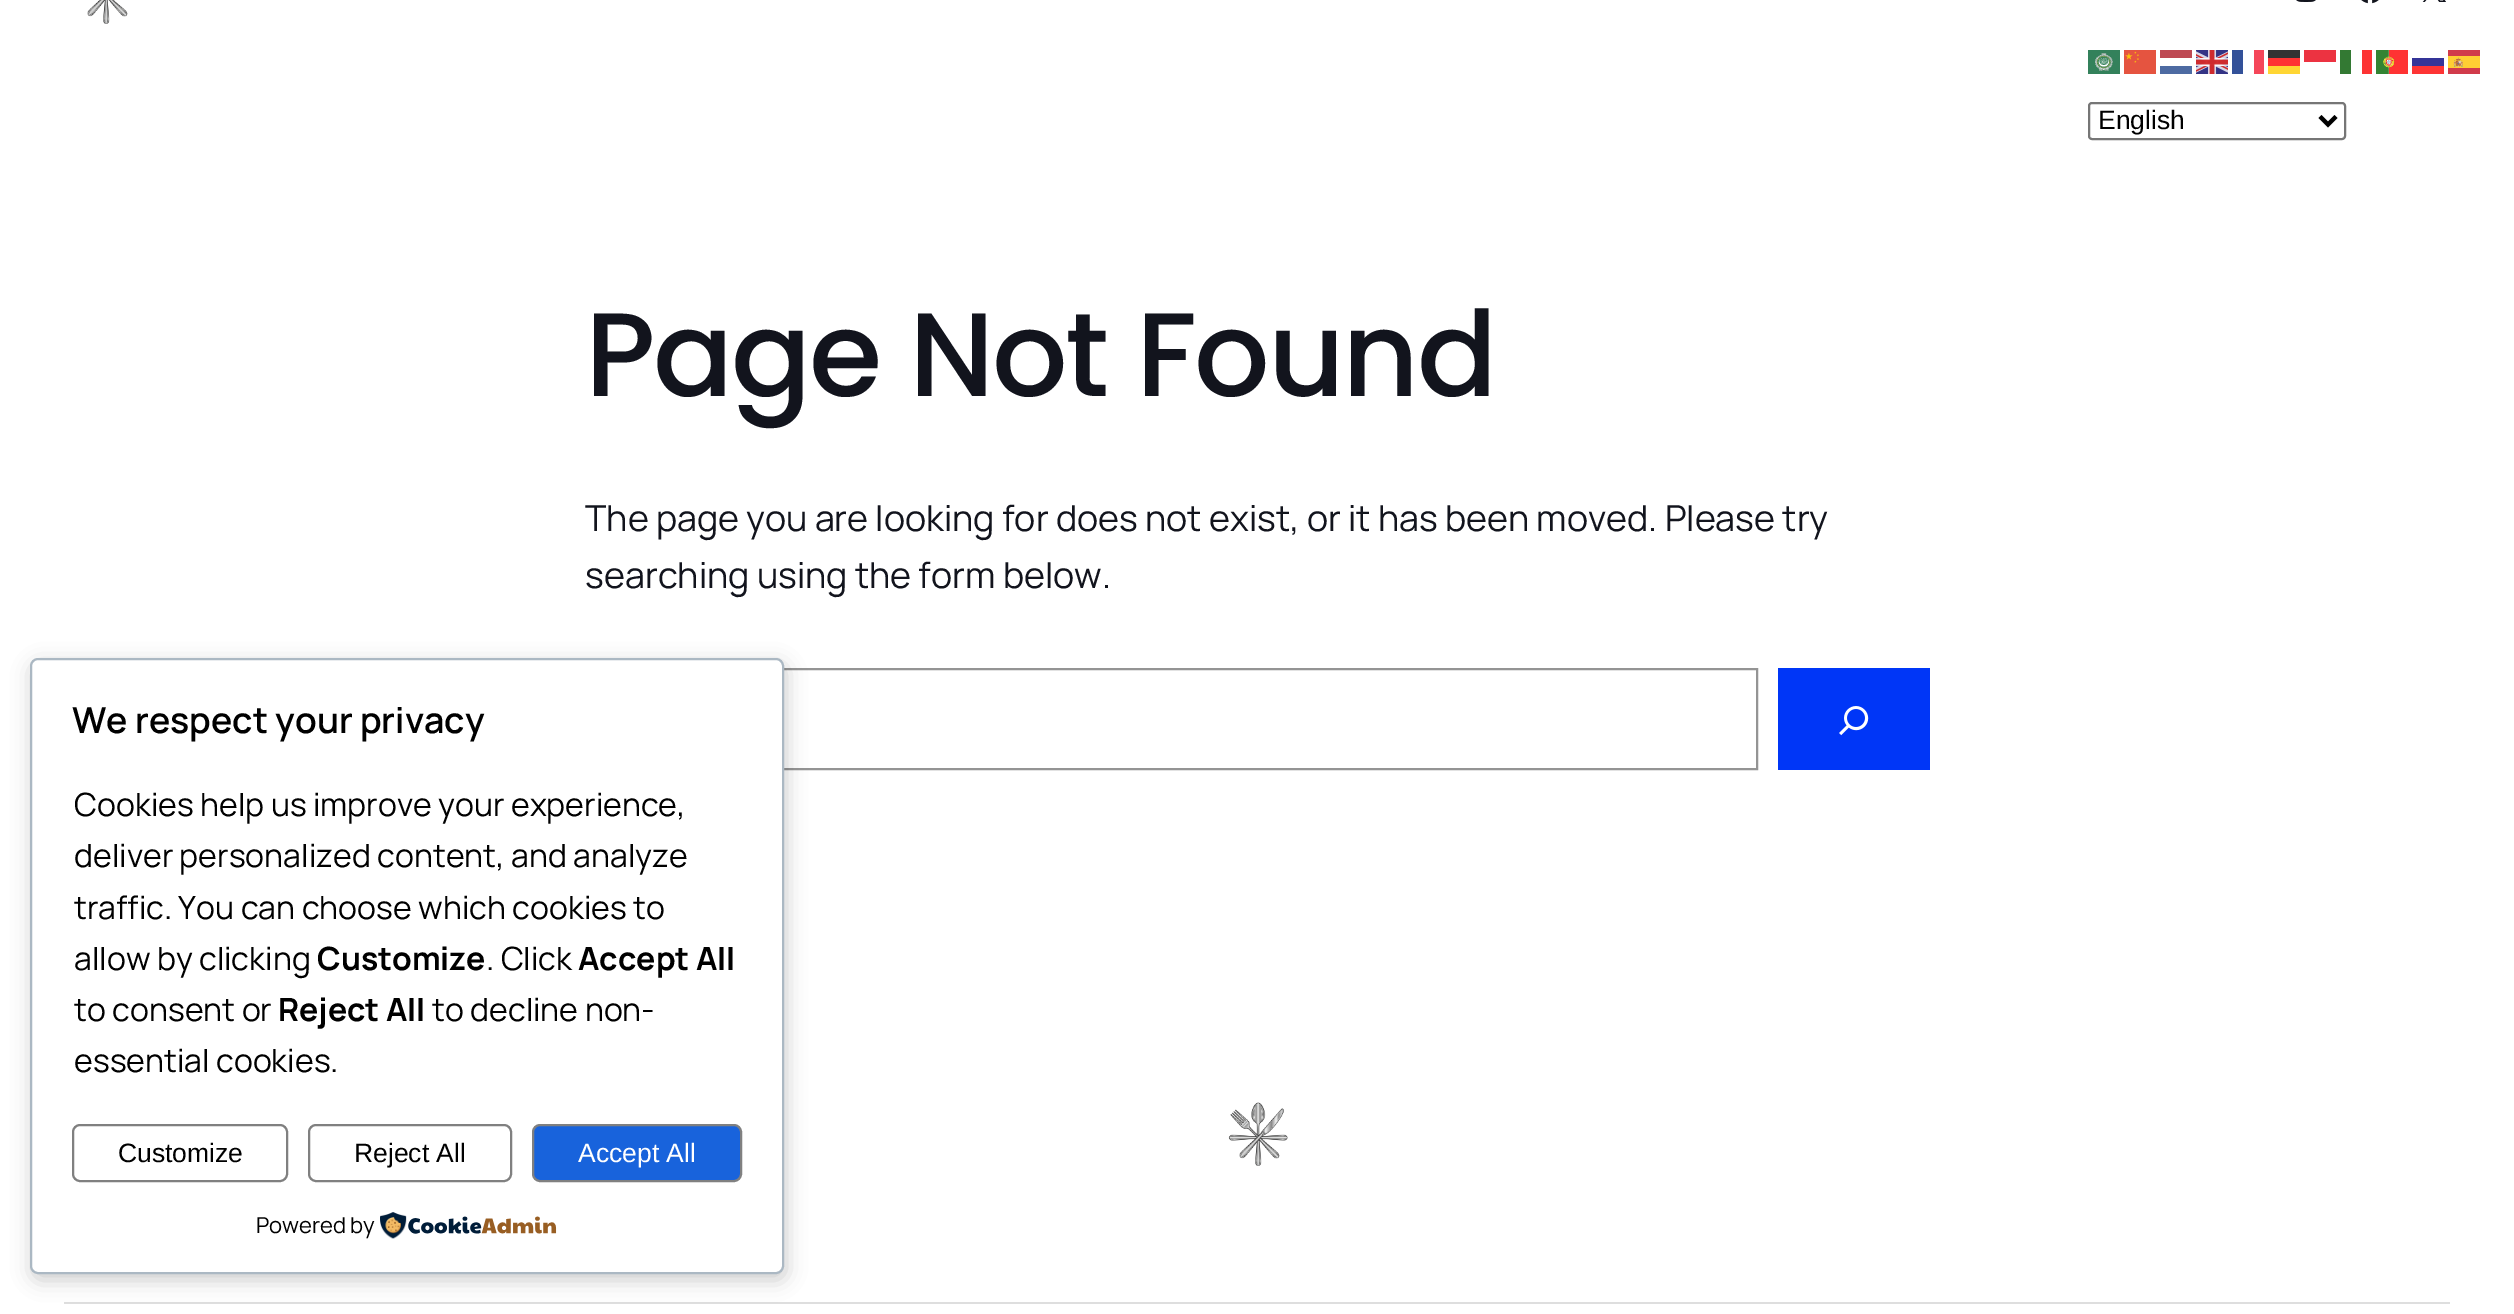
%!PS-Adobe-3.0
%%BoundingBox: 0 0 2514 1314
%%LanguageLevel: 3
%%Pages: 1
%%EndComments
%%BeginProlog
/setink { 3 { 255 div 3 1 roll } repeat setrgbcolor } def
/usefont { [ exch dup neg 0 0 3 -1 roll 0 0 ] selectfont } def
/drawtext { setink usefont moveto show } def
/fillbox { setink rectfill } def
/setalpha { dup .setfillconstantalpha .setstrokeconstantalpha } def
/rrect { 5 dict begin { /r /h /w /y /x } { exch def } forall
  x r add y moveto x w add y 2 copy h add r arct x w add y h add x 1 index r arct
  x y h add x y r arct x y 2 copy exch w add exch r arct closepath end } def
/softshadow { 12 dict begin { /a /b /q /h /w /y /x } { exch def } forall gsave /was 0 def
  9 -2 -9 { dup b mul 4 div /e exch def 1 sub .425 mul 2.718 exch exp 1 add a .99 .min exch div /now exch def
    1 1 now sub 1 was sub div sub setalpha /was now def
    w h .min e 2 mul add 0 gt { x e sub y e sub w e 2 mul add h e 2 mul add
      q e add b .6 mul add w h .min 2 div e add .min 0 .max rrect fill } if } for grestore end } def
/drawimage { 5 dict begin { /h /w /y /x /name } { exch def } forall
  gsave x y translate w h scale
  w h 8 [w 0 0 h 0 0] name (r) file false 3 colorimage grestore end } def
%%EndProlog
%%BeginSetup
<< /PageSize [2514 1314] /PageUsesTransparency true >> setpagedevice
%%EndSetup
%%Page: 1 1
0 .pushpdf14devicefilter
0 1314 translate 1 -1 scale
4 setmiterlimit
0 0 2514 1314 255 255 255 fillbox
(assets/img1.rgb) 2088 50 32 24 drawimage
(assets/img2.rgb) 2124 50 32 24 drawimage
2160 50 32 8 190 73 83 fillbox
(assets/img3.rgb) 2196 50 32 24 drawimage
2232 50 11 24 51 81 153 fillbox
2254 50 10 24 245 70 89 fillbox
2268 50 32 8 51 51 51 fillbox
2304 50 32 12 236 51 65 fillbox
2340 50 11 24 51 121 51 fillbox
2362 50 10 24 253 51 51 fillbox
(assets/img4.rgb) 2376 50 32 24 drawimage
(assets/img5.rgb) 2448 50 32 24 drawimage
2268 58 32 8 255 51 51 fillbox
2412 58 32 8 52 52 152 fillbox
2160 66 32 8 77 107 162 fillbox
2268 66 32 8 255 214 51 fillbox
2412 66 32 8 254 52 52 fillbox
118 118 118 setink
2 setlinewidth
2089 103 256 36 3 rrect stroke
0 0 0 setink
4 setlinewidth
2320 116.5 moveto 2328 124.5 lineto 2336 116.5 lineto stroke
(English) 2098 129 /LiberationSans-Regular 26.5 0 0 0 drawtext
(assets/img6.rgb) 87 0 41 24 drawimage
(assets/img7.rgb) 2296 0 20 2 drawimage
(assets/img8.rgb) 2361 0 18 4 drawimage
(assets/img9.rgb) 2422 0 24 2 drawimage
/Poppins-Medium 118.75 usefont
18 20 29 setink
585 396 moveto -2.4 0 (Page Not Found) ashow
(The page you are looking for does not exist, or it has been moved. Please try) 585 531 /Manrope-Regular 35.8 18 20 29 drawtext
(searching using the form below.) 585 588 /Manrope-Regular 35.8 18 20 29 drawtext
148 148 148 setink
2 setlinewidth
587 669 1170 100 rectstroke
1778 668 152 102 0 54 247 fillbox
(assets/img10.rgb) 1839 706 30 30 drawimage
(assets/img11.rgb) 1228 1102 60 64 drawimage
64 1302 2386 2 222 222 222 fillbox
0 0 0 setink
32 664 754 616 8 10 0.2 softshadow
255 255 255 setink
31 659 752 614 7 rrect gsave fill grestore
171 184 195 setink
stroke
(We respect your privacy) 72 733 /Manrope-SemiBold 35.8 0 0 0 drawtext
(Cookies help us improve your experience,) 74 816 /Manrope-Regular 32 0 0 0 drawtext
(deliver personalized content, and analyze) 74 867 /Manrope-Regular 32 0 0 0 drawtext
(traffic. You can choose which cookies to) 74 919 /Manrope-Regular 32 0 0 0 drawtext
(allow by clicking) 74 970 /Manrope-Regular 32 0 0 0 drawtext
(Customize) 317 970 /Manrope-Bold 32 0 0 0 drawtext
(. Click) 486 970 /Manrope-Regular 32 0 0 0 drawtext
(Accept All) 578 970 /Manrope-Bold 32 0 0 0 drawtext
(to consent or) 74 1021 /Manrope-Regular 32 0 0 0 drawtext
(Reject All) 278 1021 /Manrope-Bold 32 0 0 0 drawtext
(to decline non-) 432 1021 /Manrope-Regular 32 0 0 0 drawtext
(essential cookies.) 74 1072 /Manrope-Regular 32 0 0 0 drawtext
128 128 128 setink
73 1125 214 56 7 rrect stroke
(Customize) 118 1162 /LiberationSans-Regular 26.5 0 0 0 drawtext
128 128 128 setink
309 1125 202 56 7 rrect stroke
(Reject All) 354 1162 /LiberationSans-Regular 26.5 0 0 0 drawtext
24 99 220 setink
533 1125 208 56 7 rrect gsave fill grestore
128 128 128 setink
stroke
(Accept All) 578 1162 /LiberationSans-Regular 26.5 255 255 255 drawtext
(Powered by) 256 1233 /Manrope-Regular 22 0 0 0 drawtext
(assets/img12.rgb) 380 1212 177 27 drawimage
.poppdf14devicefilter showpage
%%EOF
